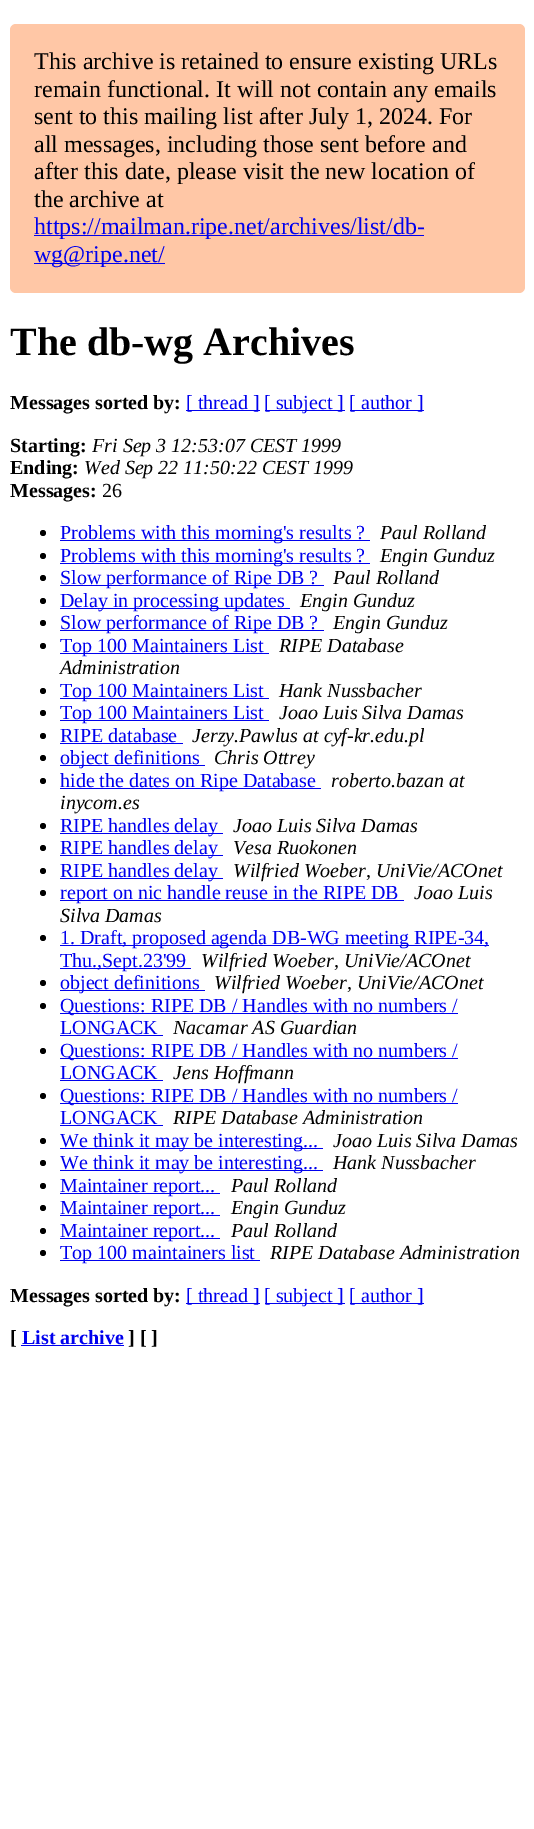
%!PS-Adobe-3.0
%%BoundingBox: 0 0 534 1829
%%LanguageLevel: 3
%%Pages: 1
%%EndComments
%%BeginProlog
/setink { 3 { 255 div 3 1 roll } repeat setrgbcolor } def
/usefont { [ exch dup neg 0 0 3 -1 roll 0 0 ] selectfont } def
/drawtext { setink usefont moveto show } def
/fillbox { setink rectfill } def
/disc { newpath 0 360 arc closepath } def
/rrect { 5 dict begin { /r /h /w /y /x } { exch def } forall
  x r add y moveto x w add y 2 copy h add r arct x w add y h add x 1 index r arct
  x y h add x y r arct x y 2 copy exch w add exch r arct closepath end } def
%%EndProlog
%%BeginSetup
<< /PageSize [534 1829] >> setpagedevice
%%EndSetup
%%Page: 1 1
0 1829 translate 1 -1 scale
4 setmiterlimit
0 0 534 1829 255 255 255 fillbox
255 199 166 setink
10 24 515 269 6 rrect fill
(This archive is retained to ensure existing URLs) 34 69 /LiberationSerif-Regular 24 0 0 0 drawtext
(remain functional. It will not contain any emails) 34 97 /LiberationSerif-Regular 24 0 0 0 drawtext
(sent to this mailing list after July 1, 2024. For) 34 124 /LiberationSerif-Regular 24 0 0 0 drawtext
(all messages, including those sent before and) 34 152 /LiberationSerif-Regular 24 0 0 0 drawtext
(after this date, please visit the new location of) 34 179 /LiberationSerif-Regular 24 0 0 0 drawtext
(the archive at) 34 207 /LiberationSerif-Regular 24 0 0 0 drawtext
34 235 390 1 0 0 238 fillbox
(https://mailman.ripe.net/archives/list/db-) 34 234 /LiberationSerif-Regular 24 0 0 238 drawtext
34 263 131 1 0 0 238 fillbox
(wg@ripe.net/) 34 262 /LiberationSerif-Regular 24 0 0 238 drawtext
(The db-wg Archives) 10 355 /LiberationSerif-Bold 40 0 0 0 drawtext
(Messages sorted by:) 10 409 /LiberationSerif-Bold 20 0 0 0 drawtext
186 410 74 1 0 0 238 fillbox
([ thread ]) 186 409 /LiberationSerif-Regular 20 0 0 238 drawtext
265 410 80 1 0 0 238 fillbox
([ subject ]) 264 409 /LiberationSerif-Regular 20 0 0 238 drawtext
350 410 74 1 0 0 238 fillbox
([ author ]) 349 409 /LiberationSerif-Regular 20 0 0 238 drawtext
(Starting:) 10 452 /LiberationSerif-Bold 20 0 0 0 drawtext
(Fri Sep 3 12:53:07 CEST 1999) 92 452 /LiberationSerif-Italic 20 0 0 0 drawtext
(Ending:) 10 474 /LiberationSerif-Bold 20 0 0 0 drawtext
(Wed Sep 22 11:50:22 CEST 1999) 84 474 /LiberationSerif-Italic 20 0 0 0 drawtext
(Messages:) 10 497 /LiberationSerif-Bold 20 0 0 0 drawtext
(26) 102 497 /LiberationSerif-Regular 20 0 0 0 drawtext
43 533 3 disc fill
60 540 310 1 0 0 238 fillbox
(Problems with this morning's results ?) 60 539 /LiberationSerif-Regular 20 0 0 238 drawtext
(Paul Rolland) 380 539 /LiberationSerif-Italic 20 0 0 0 drawtext
43 556 3 disc fill
60 563 310 1 0 0 238 fillbox
(Problems with this morning's results ?) 60 562 /LiberationSerif-Regular 20 0 0 238 drawtext
(Engin Gunduz) 380 562 /LiberationSerif-Italic 20 0 0 0 drawtext
43 578 3 disc fill
60 585 264 1 0 0 238 fillbox
(Slow performance of Ripe DB ?) 60 584 /LiberationSerif-Regular 20 0 0 238 drawtext
(Paul Rolland) 333 584 /LiberationSerif-Italic 20 0 0 0 drawtext
43 601 3 disc fill
60 608 230 1 0 0 238 fillbox
(Delay in processing updates) 60 607 /LiberationSerif-Regular 20 0 0 238 drawtext
(Engin Gunduz) 300 607 /LiberationSerif-Italic 20 0 0 0 drawtext
43 623 3 disc fill
60 630 264 1 0 0 238 fillbox
(Slow performance of Ripe DB ?) 60 629 /LiberationSerif-Regular 20 0 0 238 drawtext
(Engin Gunduz) 333 629 /LiberationSerif-Italic 20 0 0 0 drawtext
43 646 3 disc fill
60 653 209 1 0 0 238 fillbox
(Top 100 Maintainers List) 60 652 /LiberationSerif-Regular 20 0 0 238 drawtext
(RIPE Database) 279 652 /LiberationSerif-Italic 20 0 0 0 drawtext
(Administration) 60 674 /LiberationSerif-Italic 20 0 0 0 drawtext
43 691 3 disc fill
60 698 209 1 0 0 238 fillbox
(Top 100 Maintainers List) 60 697 /LiberationSerif-Regular 20 0 0 238 drawtext
(Hank Nussbacher) 279 697 /LiberationSerif-Italic 20 0 0 0 drawtext
43 713 3 disc fill
60 720 209 1 0 0 238 fillbox
(Top 100 Maintainers List) 60 719 /LiberationSerif-Regular 20 0 0 238 drawtext
(Joao Luis Silva Damas) 279 719 /LiberationSerif-Italic 20 0 0 0 drawtext
43 736 3 disc fill
(RIPE database) 60 742 /LiberationSerif-Regular 20 0 0 238 drawtext
60 743 123 1 0 0 238 fillbox
(Jerzy.Pawlus at cyf-kr.edu.pl) 192 742 /LiberationSerif-Italic 20 0 0 0 drawtext
43 758 3 disc fill
60 765 145 1 0 0 238 fillbox
(object definitions) 60 764 /LiberationSerif-Regular 20 0 0 238 drawtext
(Chris Ottrey) 214 764 /LiberationSerif-Italic 20 0 0 0 drawtext
43 781 3 disc fill
60 788 261 1 0 0 238 fillbox
(hide the dates on Ripe Database) 60 787 /LiberationSerif-Regular 20 0 0 238 drawtext
(roberto.bazan at) 331 787 /LiberationSerif-Italic 20 0 0 0 drawtext
(inycom.es) 60 809 /LiberationSerif-Italic 20 0 0 0 drawtext
43 826 3 disc fill
60 833 163 1 0 0 238 fillbox
(RIPE handles delay) 60 832 /LiberationSerif-Regular 20 0 0 238 drawtext
(Joao Luis Silva Damas) 233 832 /LiberationSerif-Italic 20 0 0 0 drawtext
43 848 3 disc fill
60 855 163 1 0 0 238 fillbox
(RIPE handles delay) 60 854 /LiberationSerif-Regular 20 0 0 238 drawtext
(Vesa Ruokonen) 233 854 /LiberationSerif-Italic 20 0 0 0 drawtext
43 871 3 disc fill
60 878 163 1 0 0 238 fillbox
(RIPE handles delay) 60 877 /LiberationSerif-Regular 20 0 0 238 drawtext
(Wilfried Woeber, UniVie/ACOnet) 233 877 /LiberationSerif-Italic 20 0 0 0 drawtext
43 893 3 disc fill
60 900 344 1 0 0 238 fillbox
(report on nic handle reuse in the RIPE DB) 60 899 /LiberationSerif-Regular 20 0 0 238 drawtext
(Joao Luis) 414 899 /LiberationSerif-Italic 20 0 0 0 drawtext
(Silva Damas) 60 922 /LiberationSerif-Italic 20 0 0 0 drawtext
43 938 3 disc fill
60 945 429 1 0 0 238 fillbox
(1. Draft, proposed agenda DB-WG meeting RIPE-34,) 60 944 /LiberationSerif-Regular 20 0 0 238 drawtext
60 968 131 1 0 0 238 fillbox
(Thu.,Sept.23'99) 60 967 /LiberationSerif-Regular 20 0 0 238 drawtext
(Wilfried Woeber, UniVie/ACOnet) 201 967 /LiberationSerif-Italic 20 0 0 0 drawtext
43 983 3 disc fill
60 990 145 1 0 0 238 fillbox
(object definitions) 60 989 /LiberationSerif-Regular 20 0 0 238 drawtext
(Wilfried Woeber, UniVie/ACOnet) 214 989 /LiberationSerif-Italic 20 0 0 0 drawtext
43 1006 3 disc fill
60 1013 398 1 0 0 238 fillbox
(Questions: RIPE DB / Handles with no numbers /) 60 1012 /LiberationSerif-Regular 20 0 0 238 drawtext
(LONGACK) 60 1034 /LiberationSerif-Regular 20 0 0 238 drawtext
60 1035 103 1 0 0 238 fillbox
(Nacamar AS Guardian) 173 1034 /LiberationSerif-Italic 20 0 0 0 drawtext
43 1051 3 disc fill
60 1058 398 1 0 0 238 fillbox
(Questions: RIPE DB / Handles with no numbers /) 60 1057 /LiberationSerif-Regular 20 0 0 238 drawtext
(LONGACK) 60 1079 /LiberationSerif-Regular 20 0 0 238 drawtext
60 1080 103 1 0 0 238 fillbox
(Jens Hoffmann) 173 1079 /LiberationSerif-Italic 20 0 0 0 drawtext
43 1096 3 disc fill
60 1103 398 1 0 0 238 fillbox
(Questions: RIPE DB / Handles with no numbers /) 60 1102 /LiberationSerif-Regular 20 0 0 238 drawtext
(LONGACK) 60 1124 /LiberationSerif-Regular 20 0 0 238 drawtext
60 1125 103 1 0 0 238 fillbox
(RIPE Database Administration) 173 1124 /LiberationSerif-Italic 20 0 0 0 drawtext
43 1141 3 disc fill
60 1148 263 1 0 0 238 fillbox
(We think it may be interesting...) 60 1147 /LiberationSerif-Regular 20 0 0 238 drawtext
(Joao Luis Silva Damas) 333 1147 /LiberationSerif-Italic 20 0 0 0 drawtext
43 1163 3 disc fill
60 1170 263 1 0 0 238 fillbox
(We think it may be interesting...) 60 1169 /LiberationSerif-Regular 20 0 0 238 drawtext
(Hank Nussbacher) 333 1169 /LiberationSerif-Italic 20 0 0 0 drawtext
43 1186 3 disc fill
60 1193 160 1 0 0 238 fillbox
(Maintainer report...) 60 1192 /LiberationSerif-Regular 20 0 0 238 drawtext
(Paul Rolland) 231 1192 /LiberationSerif-Italic 20 0 0 0 drawtext
43 1208 3 disc fill
60 1215 160 1 0 0 238 fillbox
(Maintainer report...) 60 1214 /LiberationSerif-Regular 20 0 0 238 drawtext
(Engin Gunduz) 231 1214 /LiberationSerif-Italic 20 0 0 0 drawtext
43 1231 3 disc fill
60 1238 160 1 0 0 238 fillbox
(Maintainer report...) 60 1237 /LiberationSerif-Regular 20 0 0 238 drawtext
(Paul Rolland) 231 1237 /LiberationSerif-Italic 20 0 0 0 drawtext
43 1253 3 disc fill
60 1260 200 1 0 0 238 fillbox
(Top 100 maintainers list) 60 1259 /LiberationSerif-Regular 20 0 0 238 drawtext
(RIPE Database Administration) 270 1259 /LiberationSerif-Italic 20 0 0 0 drawtext
(Messages sorted by:) 10 1302 /LiberationSerif-Bold 20 0 0 0 drawtext
186 1303 74 1 0 0 238 fillbox
([ thread ]) 186 1302 /LiberationSerif-Regular 20 0 0 238 drawtext
265 1303 80 1 0 0 238 fillbox
([ subject ]) 264 1302 /LiberationSerif-Regular 20 0 0 238 drawtext
350 1303 74 1 0 0 238 fillbox
([ author ]) 349 1302 /LiberationSerif-Regular 20 0 0 238 drawtext
([) 10 1344 /LiberationSerif-Bold 20 0 0 0 drawtext
(List archive) 22 1344 /LiberationSerif-Bold 20 0 0 238 drawtext
21 1345 103 1 0 0 238 fillbox
(] [ ]) 128 1344 /LiberationSerif-Bold 20 0 0 0 drawtext
showpage
%%EOF
